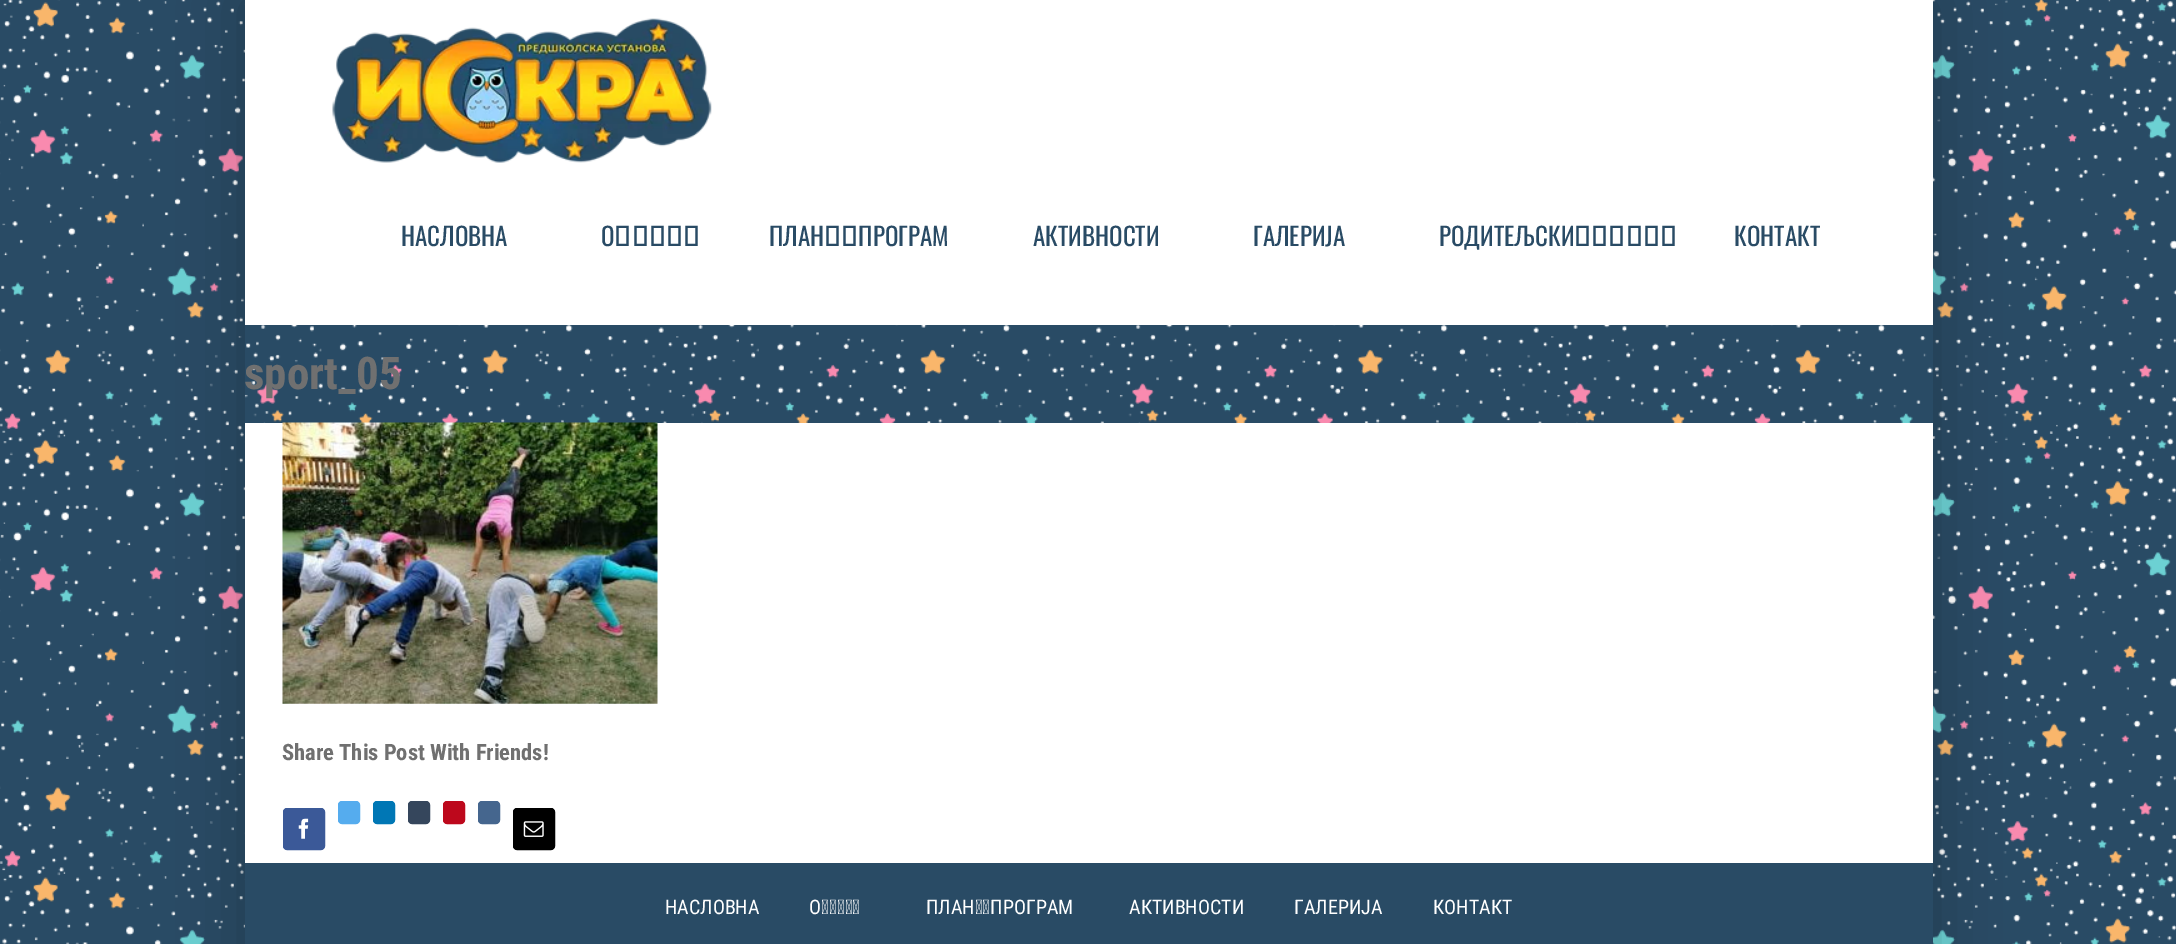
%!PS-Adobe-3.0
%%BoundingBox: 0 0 2176 944
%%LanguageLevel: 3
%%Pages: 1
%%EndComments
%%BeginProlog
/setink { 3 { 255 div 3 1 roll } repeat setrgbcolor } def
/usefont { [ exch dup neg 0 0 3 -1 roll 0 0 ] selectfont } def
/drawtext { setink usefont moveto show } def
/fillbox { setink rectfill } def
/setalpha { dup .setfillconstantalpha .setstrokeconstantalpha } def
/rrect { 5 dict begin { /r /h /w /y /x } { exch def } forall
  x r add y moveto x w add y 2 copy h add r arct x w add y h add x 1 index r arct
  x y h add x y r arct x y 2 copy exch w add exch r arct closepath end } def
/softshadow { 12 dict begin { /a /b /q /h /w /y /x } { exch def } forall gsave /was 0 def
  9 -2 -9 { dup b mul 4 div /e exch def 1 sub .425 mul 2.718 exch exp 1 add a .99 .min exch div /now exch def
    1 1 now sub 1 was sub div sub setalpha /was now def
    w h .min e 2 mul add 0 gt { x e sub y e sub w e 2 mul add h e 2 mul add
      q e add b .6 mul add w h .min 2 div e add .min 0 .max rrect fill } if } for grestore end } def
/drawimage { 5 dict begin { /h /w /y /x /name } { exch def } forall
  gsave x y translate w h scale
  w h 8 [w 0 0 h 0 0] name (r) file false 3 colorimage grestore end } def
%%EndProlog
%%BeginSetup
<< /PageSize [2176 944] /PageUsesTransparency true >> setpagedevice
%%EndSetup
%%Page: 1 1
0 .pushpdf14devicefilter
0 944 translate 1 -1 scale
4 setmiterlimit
0 0 2176 944 255 255 255 fillbox
(assets/img1.rgb) 0 0 2176 944 drawimage
gsave
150 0 moveto 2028 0 lineto 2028 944 lineto 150 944 lineto closepath 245 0 moveto 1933 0 lineto 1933 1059 lineto 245 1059 lineto closepath eoclip newpath
0 0 0 setink
244 -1 1690 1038 0 31 0.22 softshadow
grestore
245 0 1688 325 255 255 255 fillbox
(assets/img2.rgb) 332 18 380 145 drawimage
(НАСЛОВНА) 401 246 /Oswald-Regular 25 41 75 101 drawtext
(О НАМА) 601 246 /Oswald-Regular 25 41 75 101 drawtext
(ПЛАН И ПРОГРАМ) 769 246 /Oswald-Regular 25 41 75 101 drawtext
(АКТИВНОСТИ) 1033 246 /Oswald-Regular 25 41 75 101 drawtext
(ГАЛЕРИЈА) 1253 246 /Oswald-Regular 25 41 75 101 drawtext
(РОДИТЕЉСКИ КУТАК) 1439 246 /Oswald-Regular 25 41 75 101 drawtext
(КОНТАКТ) 1734 246 /Oswald-Regular 25 41 75 101 drawtext
(sport_05) 244 389 /RobotoCondensed-Bold 45 112 112 112 drawtext
245 423 1688 440 255 255 255 fillbox
(assets/img3.rgb) 282 422 376 282 drawimage
(Share This Post With Friends!) 282 760 /RobotoCondensed-Bold 22.5 112 112 112 drawtext
59 89 152 setink
283.5 808.5 41 41 3.5 rrect gsave fill grestore
stroke
(assets/img4.rgb) 298 818 11 21 drawimage
85 172 238 setink
338.5 801.5 21 22 3.5 rrect gsave fill grestore
stroke
0 119 181 setink
373.5 801.5 21 22 3.5 rrect gsave fill grestore
stroke
53 70 92 setink
408.5 801.5 21 22 3.5 rrect gsave fill grestore
stroke
189 8 28 setink
443.5 801.5 21 22 3.5 rrect gsave fill grestore
stroke
69 102 142 setink
478.5 801.5 21 22 3.5 rrect gsave fill grestore
stroke
0 0 0 setink
513.5 808.5 41 41 3.5 rrect gsave fill grestore
stroke
(assets/img5.rgb) 523 821 21 16 drawimage
245 863 1688 81 41 75 101 fillbox
(НАСЛОВНА) 665 914 /RobotoCondensed-Regular 20 255 255 255 drawtext
(О НАМА) 809 914 /RobotoCondensed-Regular 20 255 255 255 drawtext
(ПЛАН И ПРОГРАМ) 926 914 /RobotoCondensed-Regular 20 255 255 255 drawtext
(АКТИВНОСТИ) 1129 914 /RobotoCondensed-Regular 20 255 255 255 drawtext
(ГАЛЕРИЈА) 1294 914 /RobotoCondensed-Regular 20 255 255 255 drawtext
(КОНТАКТ) 1433 914 /RobotoCondensed-Regular 20 255 255 255 drawtext
.poppdf14devicefilter showpage
%%EOF
